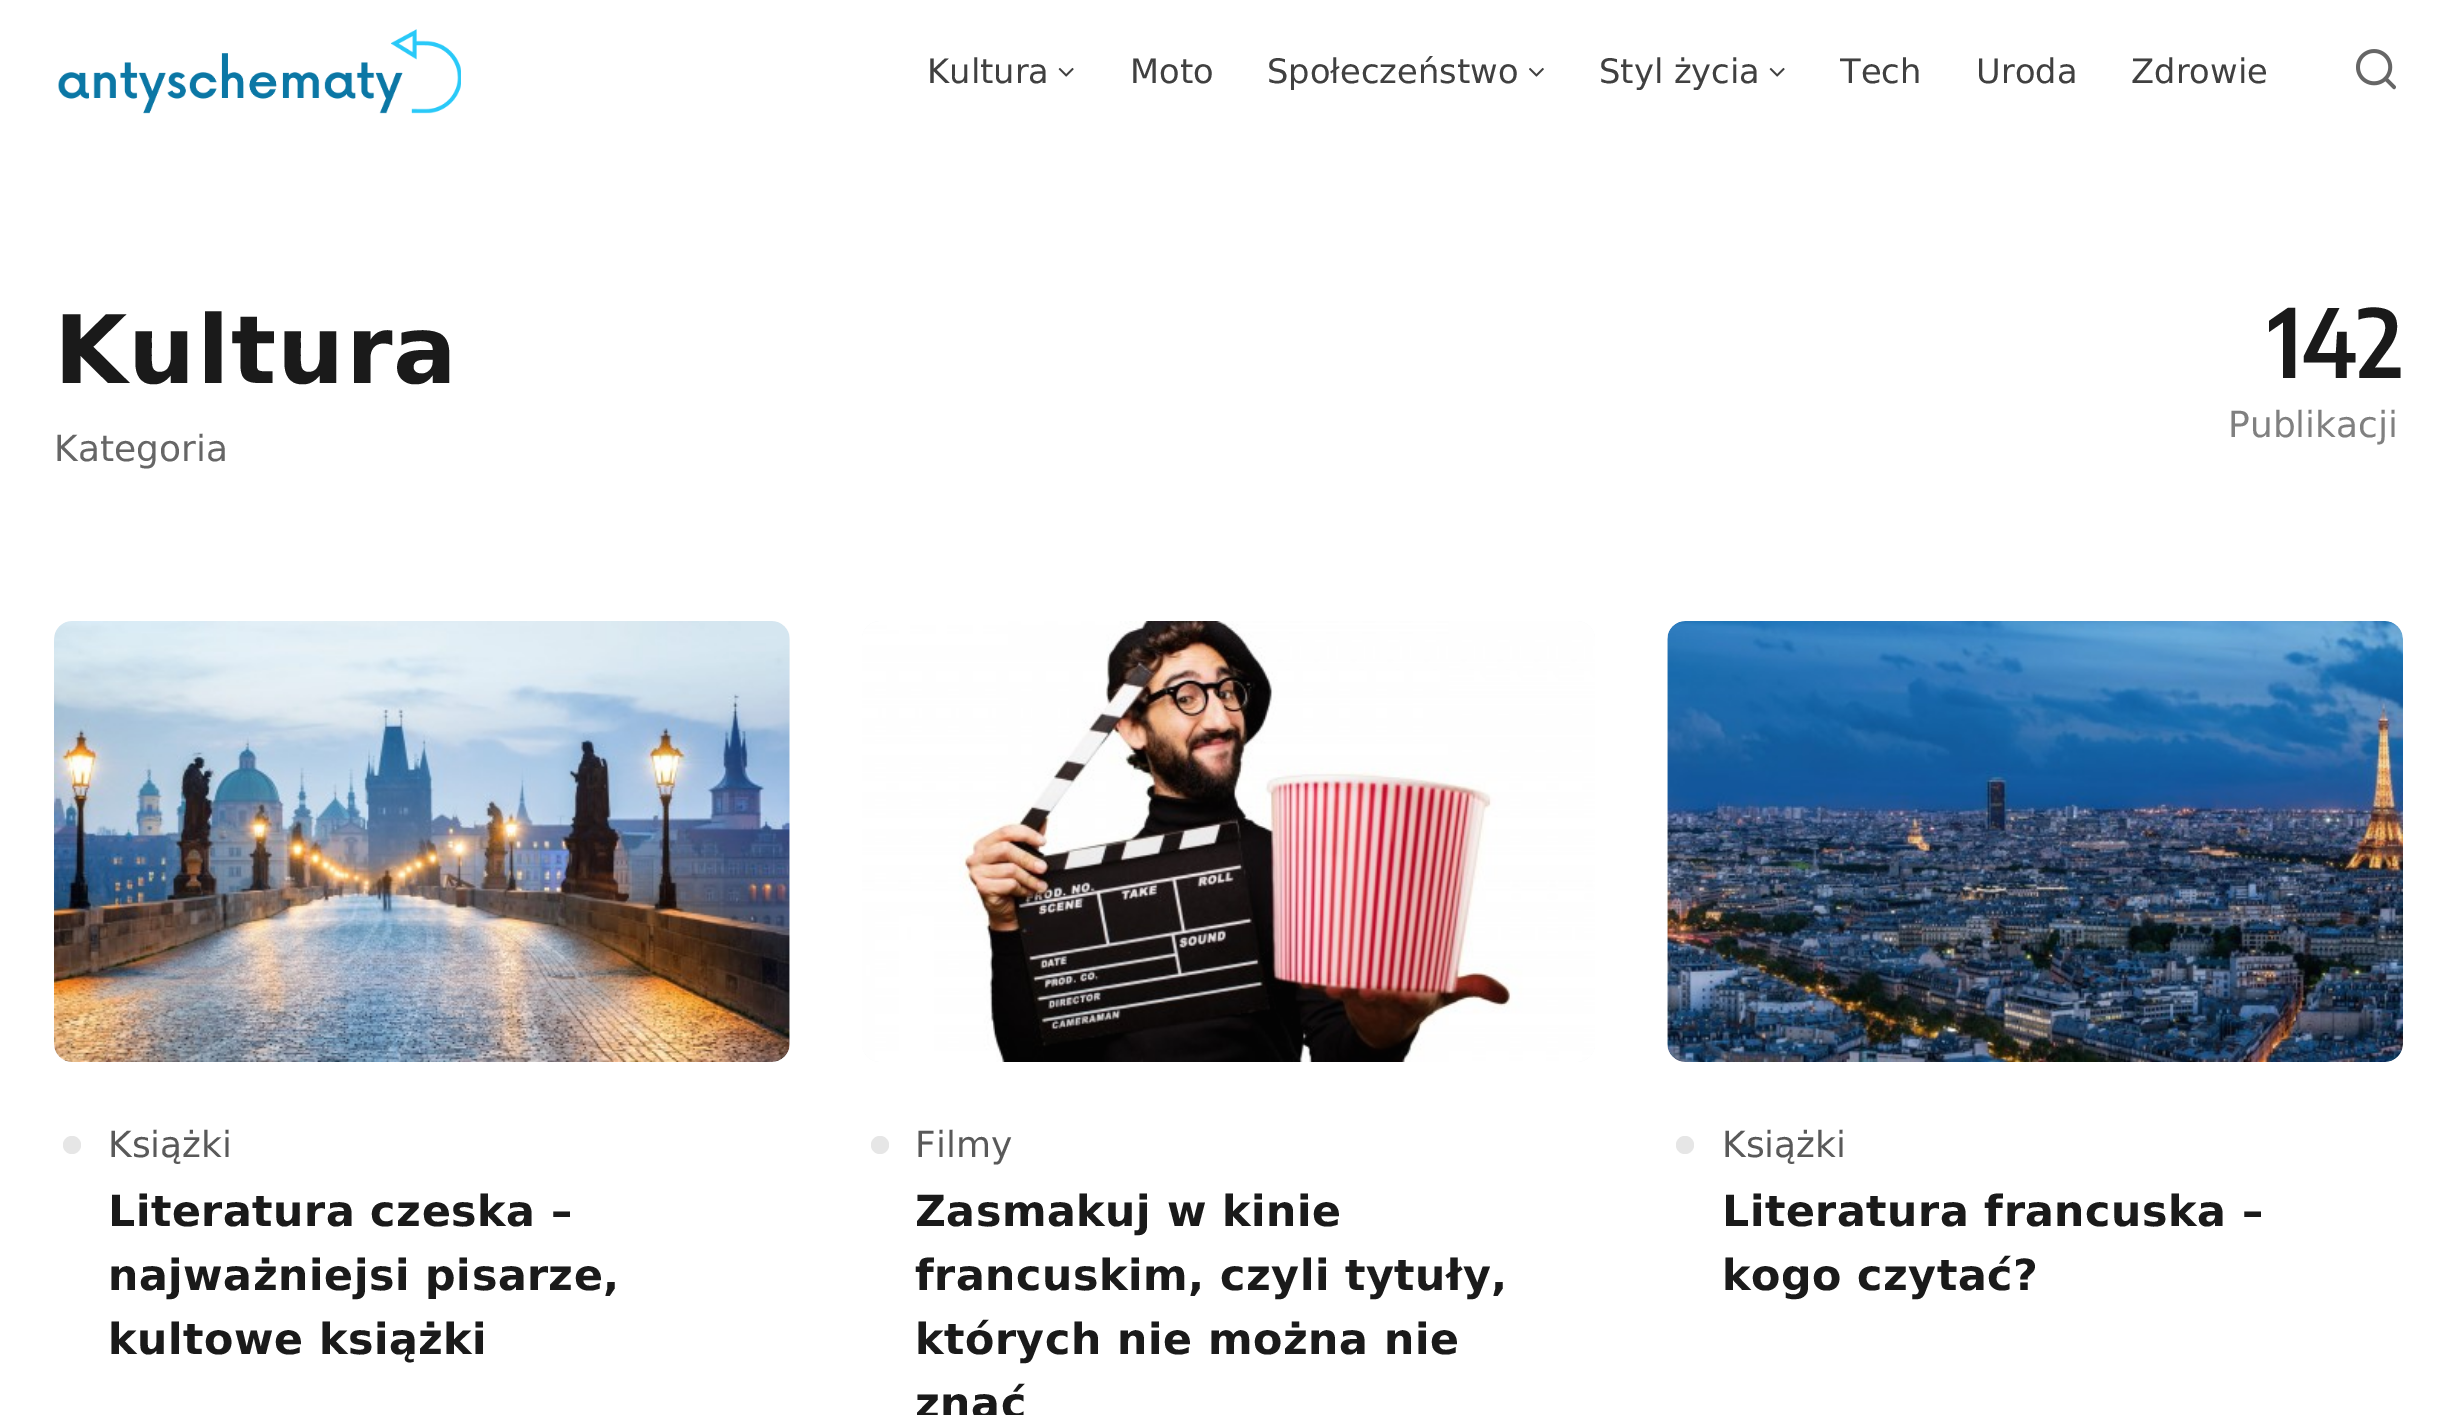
%!PS-Adobe-3.0
%%BoundingBox: 0 0 2457 1415
%%LanguageLevel: 3
%%Pages: 1
%%EndComments
%%BeginProlog
/setink { 3 { 255 div 3 1 roll } repeat setrgbcolor } def
/usefont { [ exch dup neg 0 0 3 -1 roll 0 0 ] selectfont } def
/drawtext { setink usefont moveto show } def
/fillbox { setink rectfill } def
/disc { newpath 0 360 arc closepath } def
/rrect { 5 dict begin { /r /h /w /y /x } { exch def } forall
  x r add y moveto x w add y 2 copy h add r arct x w add y h add x 1 index r arct
  x y h add x y r arct x y 2 copy exch w add exch r arct closepath end } def
/drawimage { 5 dict begin { /h /w /y /x /name } { exch def } forall
  gsave x y translate w h scale
  w h 8 [w 0 0 h 0 0] name (r) file false 3 colorimage grestore end } def
%%EndProlog
%%BeginSetup
<< /PageSize [2457 1415] >> setpagedevice
%%EndSetup
%%Page: 1 1
0 1415 translate 1 -1 scale
4 setmiterlimit
0 0 2457 1415 255 255 255 fillbox
(assets/img1.rgb) 58 29 403 85 drawimage
(Kultura) 927 83 /DejaVuSans-Regular 33.75 64 64 64 drawtext
(assets/img2.rgb) 1058 67 16 10 drawimage
(Moto) 1130 83 /DejaVuSans-Regular 33.75 64 64 64 drawtext
(Społeczeństwo) 1267 83 /DejaVuSans-Regular 33.75 64 64 64 drawtext
(assets/img3.rgb) 1529 67 15 10 drawimage
(Styl życia) 1599 83 /DejaVuSans-Regular 33.75 64 64 64 drawtext
(assets/img2.rgb) 1769 67 16 10 drawimage
(Tech) 1840 83 /DejaVuSans-Regular 33.75 64 64 64 drawtext
(Uroda) 1976 83 /DejaVuSans-Regular 33.75 64 64 64 drawtext
(Zdrowie) 2131 83 /DejaVuSans-Regular 33.75 64 64 64 drawtext
(assets/img4.rgb) 2356 49 40 41 drawimage
/DejaVuSans-Bold 94.5 usefont
26 26 26 setink
54 383 moveto 1.25 0 (Kultura) ashow
(Kategoria) 54 461 /DejaVuSans-Regular 36 102 102 102 drawtext
(142) 2268 378 /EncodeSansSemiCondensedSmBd-SemiBold 94.5 26 26 26 drawtext
(Publikacji) 2228 437 /DejaVuSans-Regular 36 128 128 128 drawtext
244 246 248 setink
54 621 736 441 18 rrect fill
(assets/img6.rgb) 387 815 68 51 drawimage
(assets/img5.rgb) 54 621 736 441 drawimage
230 230 230 setink
72 1145 9 disc fill
(Książki) 108 1157 /DejaVuSans-Regular 36 89 89 89 drawtext
/DejaVuSans-Bold 42.75 usefont
26 26 26 setink
108 1226 moveto 0.5 0 (Literatura czeska –) ashow
108 1290 moveto 0.5 0 (najważniejsi pisarze,) ashow
108 1354 moveto 0.5 0 (kultowe książki) ashow
244 246 248 setink
862 621 733 441 18 rrect fill
(assets/img8.rgb) 1195 815 67 51 drawimage
(assets/img7.rgb) 862 621 733 441 drawimage
230 230 230 setink
880 1145 9 disc fill
(Filmy) 915 1157 /DejaVuSans-Regular 36 89 89 89 drawtext
/DejaVuSans-Bold 42.75 usefont
26 26 26 setink
915 1226 moveto 0.5 0 (Zasmakuj w kinie) ashow
915 1290 moveto 0.5 0 (francuskim, czyli tytuły,) ashow
915 1354 moveto 0.5 0 (których nie można nie) ashow
915 1418 moveto 0.5 0 (znać) ashow
244 246 248 setink
1667 621 736 441 18 rrect fill
(assets/img10.rgb) 2002 815 68 51 drawimage
(assets/img9.rgb) 1667 621 736 441 drawimage
230 230 230 setink
1685 1145 9 disc fill
(Książki) 1722 1157 /DejaVuSans-Regular 36 89 89 89 drawtext
/DejaVuSans-Bold 42.75 usefont
26 26 26 setink
1722 1226 moveto 0.5 0 (Literatura francuska –) ashow
1722 1290 moveto 0.5 0 (kogo czytać?) ashow
showpage
%%EOF
